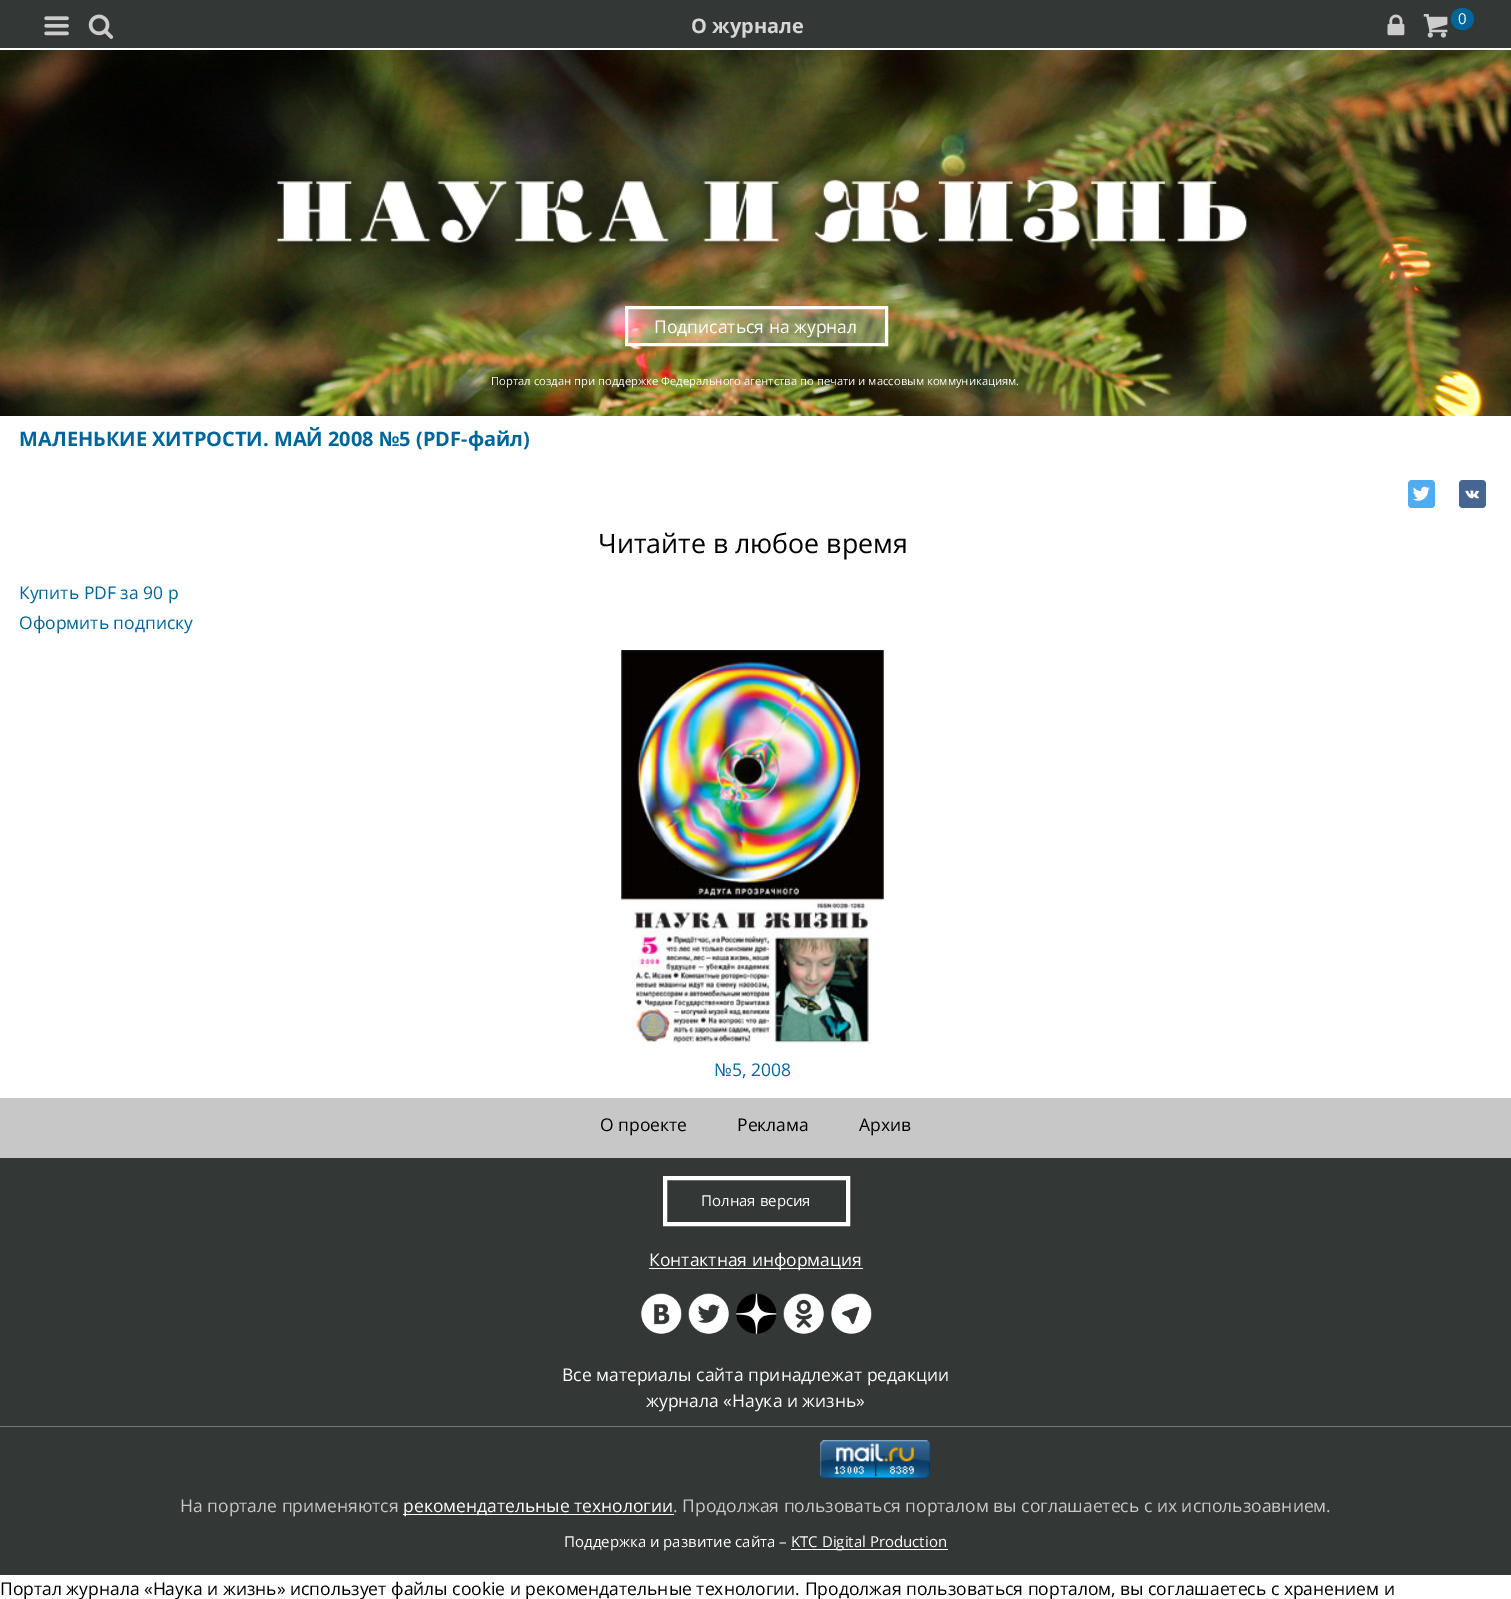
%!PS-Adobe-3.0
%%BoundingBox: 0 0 1511 1599
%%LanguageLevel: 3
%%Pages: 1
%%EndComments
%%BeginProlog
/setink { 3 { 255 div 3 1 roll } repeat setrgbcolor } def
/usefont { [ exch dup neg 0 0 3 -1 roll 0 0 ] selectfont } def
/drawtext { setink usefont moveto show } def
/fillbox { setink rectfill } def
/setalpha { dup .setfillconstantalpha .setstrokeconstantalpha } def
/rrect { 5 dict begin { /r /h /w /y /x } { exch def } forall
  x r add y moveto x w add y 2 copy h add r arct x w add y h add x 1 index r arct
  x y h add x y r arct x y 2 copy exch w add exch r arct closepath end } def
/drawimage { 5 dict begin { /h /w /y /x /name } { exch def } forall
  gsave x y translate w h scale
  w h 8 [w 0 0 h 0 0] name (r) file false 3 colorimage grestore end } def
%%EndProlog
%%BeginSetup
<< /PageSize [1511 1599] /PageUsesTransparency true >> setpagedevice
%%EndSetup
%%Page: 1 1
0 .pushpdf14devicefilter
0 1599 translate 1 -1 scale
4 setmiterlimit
0 0 1511 1599 255 255 255 fillbox
0 0 1511 48 51 55 53 fillbox
(assets/img1.rgb) 44 16 25 20 drawimage
(assets/img2.rgb) 88 14 26 25 drawimage
(О журнале) 691 33 /OpenSans-Bold 20 214 214 214 drawtext
(assets/img3.rgb) 1387 14 18 22 drawimage
(assets/img4.rgb) 1423 14 25 24 drawimage
0 102 153 setink
1451 8 23 22 11 rrect fill
(0) 1458 24 /OpenSans-Regular 15 255 255 255 drawtext
(assets/img5.rgb) 0 50 1511 366 drawimage
(assets/img6.rgb) 265 161 985 102 drawimage
0.25 setalpha
626.5 307.5 moveto 886.5 307.5 lineto 886.5 344.5 lineto 626.5 344.5 lineto closepath fill
1 setalpha
3 setlinewidth
626.5 307.5 moveto 886.5 307.5 lineto 886.5 344.5 lineto 626.5 344.5 lineto closepath stroke
(Подписаться на журнал) 654 333 /OpenSans-Regular 17.5 255 255 255 drawtext
(Портал создан при поддержке Федерального агентства по печати и массовым коммуникациям.) 491 385 /OpenSans-Regular 11.25 255 255 255 drawtext
(МАЛЕНЬКИЕ ХИТРОСТИ. МАЙ 2008 №5 \(PDF-файл\)) 19 446 /OpenSans-Bold 20 0 102 153 drawtext
80 171 241 setink
1408 480 27 28 4 rrect fill
(assets/img7.rgb) 1412 486 18 15 drawimage
68 102 144 setink
1459 480 27 28 4 rrect fill
(assets/img8.rgb) 1465 490 14 9 drawimage
(Читайте в любое время) 598 553 /OpenSans-Regular 26.75 0 0 0 drawtext
(Купить PDF за 90 р) 19 599 /OpenSans-Regular 17.5 0 102 153 drawtext
(Оформить подписку) 19 629 /OpenSans-Regular 17.5 0 102 153 drawtext
(assets/img9.rgb) 621 650 263 395 drawimage
(№5, 2008) 714 1076 /OpenSans-Regular 17.5 0 102 153 drawtext
0 1098 1511 60 199 199 199 fillbox
(О проекте) 600 1131 /OpenSans-Regular 17.5 0 0 0 drawtext
(Реклама) 737 1131 /OpenSans-Regular 17.5 0 0 0 drawtext
(Архив) 859 1131 /OpenSans-Regular 17.5 0 0 0 drawtext
0 1158 1511 417 51 55 53 fillbox
255 255 255 setink
4 setlinewidth
665 1178 183 46 rectstroke
(Полная версия) 701 1206 /OpenSans-Regular 15 255 255 255 drawtext
649 1268 214 1 255 255 255 fillbox
(Контактная информация) 649 1266 /OpenSans-Regular 17.5 255 255 255 drawtext
(assets/img10.rgb) 641 1293 41 41 drawimage
(assets/img11.rgb) 688 1293 41 41 drawimage
(assets/img12.rgb) 736 1293 41 41 drawimage
(assets/img13.rgb) 783 1293 41 41 drawimage
(assets/img14.rgb) 831 1293 41 41 drawimage
(Все материалы сайта принадлежат редакции) 562 1381 /OpenSans-Regular 17.5 255 255 255 drawtext
(журнала «Наука и жизнь») 646 1407 /OpenSans-Regular 17.5 255 255 255 drawtext
0 1426 1511 1 117 120 121 fillbox
(assets/img15.rgb) 820 1440 110 39 drawimage
(На портале применяются) 180 1512 /OpenSans-Regular 17.5 199 199 199 drawtext
403 1514 271 1 255 255 255 fillbox
(рекомендательные технологии) 403 1512 /OpenSans-Regular 17.5 255 255 255 drawtext
(. Продолжая пользоваться порталом вы соглашаетесь с их использоавнием.) 673 1512 /OpenSans-Regular 17.5 199 199 199 drawtext
(Поддержка и развитие сайта –) 564 1547 /OpenSans-Regular 15 255 255 255 drawtext
791 1549 157 1 255 255 255 fillbox
(KTC Digital Production) 791 1547 /OpenSans-Regular 15 255 255 255 drawtext
(Портал журнала «Наука и жизнь» использует файлы cookie и рекомендательные технологии. Продолжая пользоваться порталом, вы соглашаетесь с хранением и) 0 1595 /OpenSans-Regular 17.5 0 0 0 drawtext
.poppdf14devicefilter showpage
%%EOF
